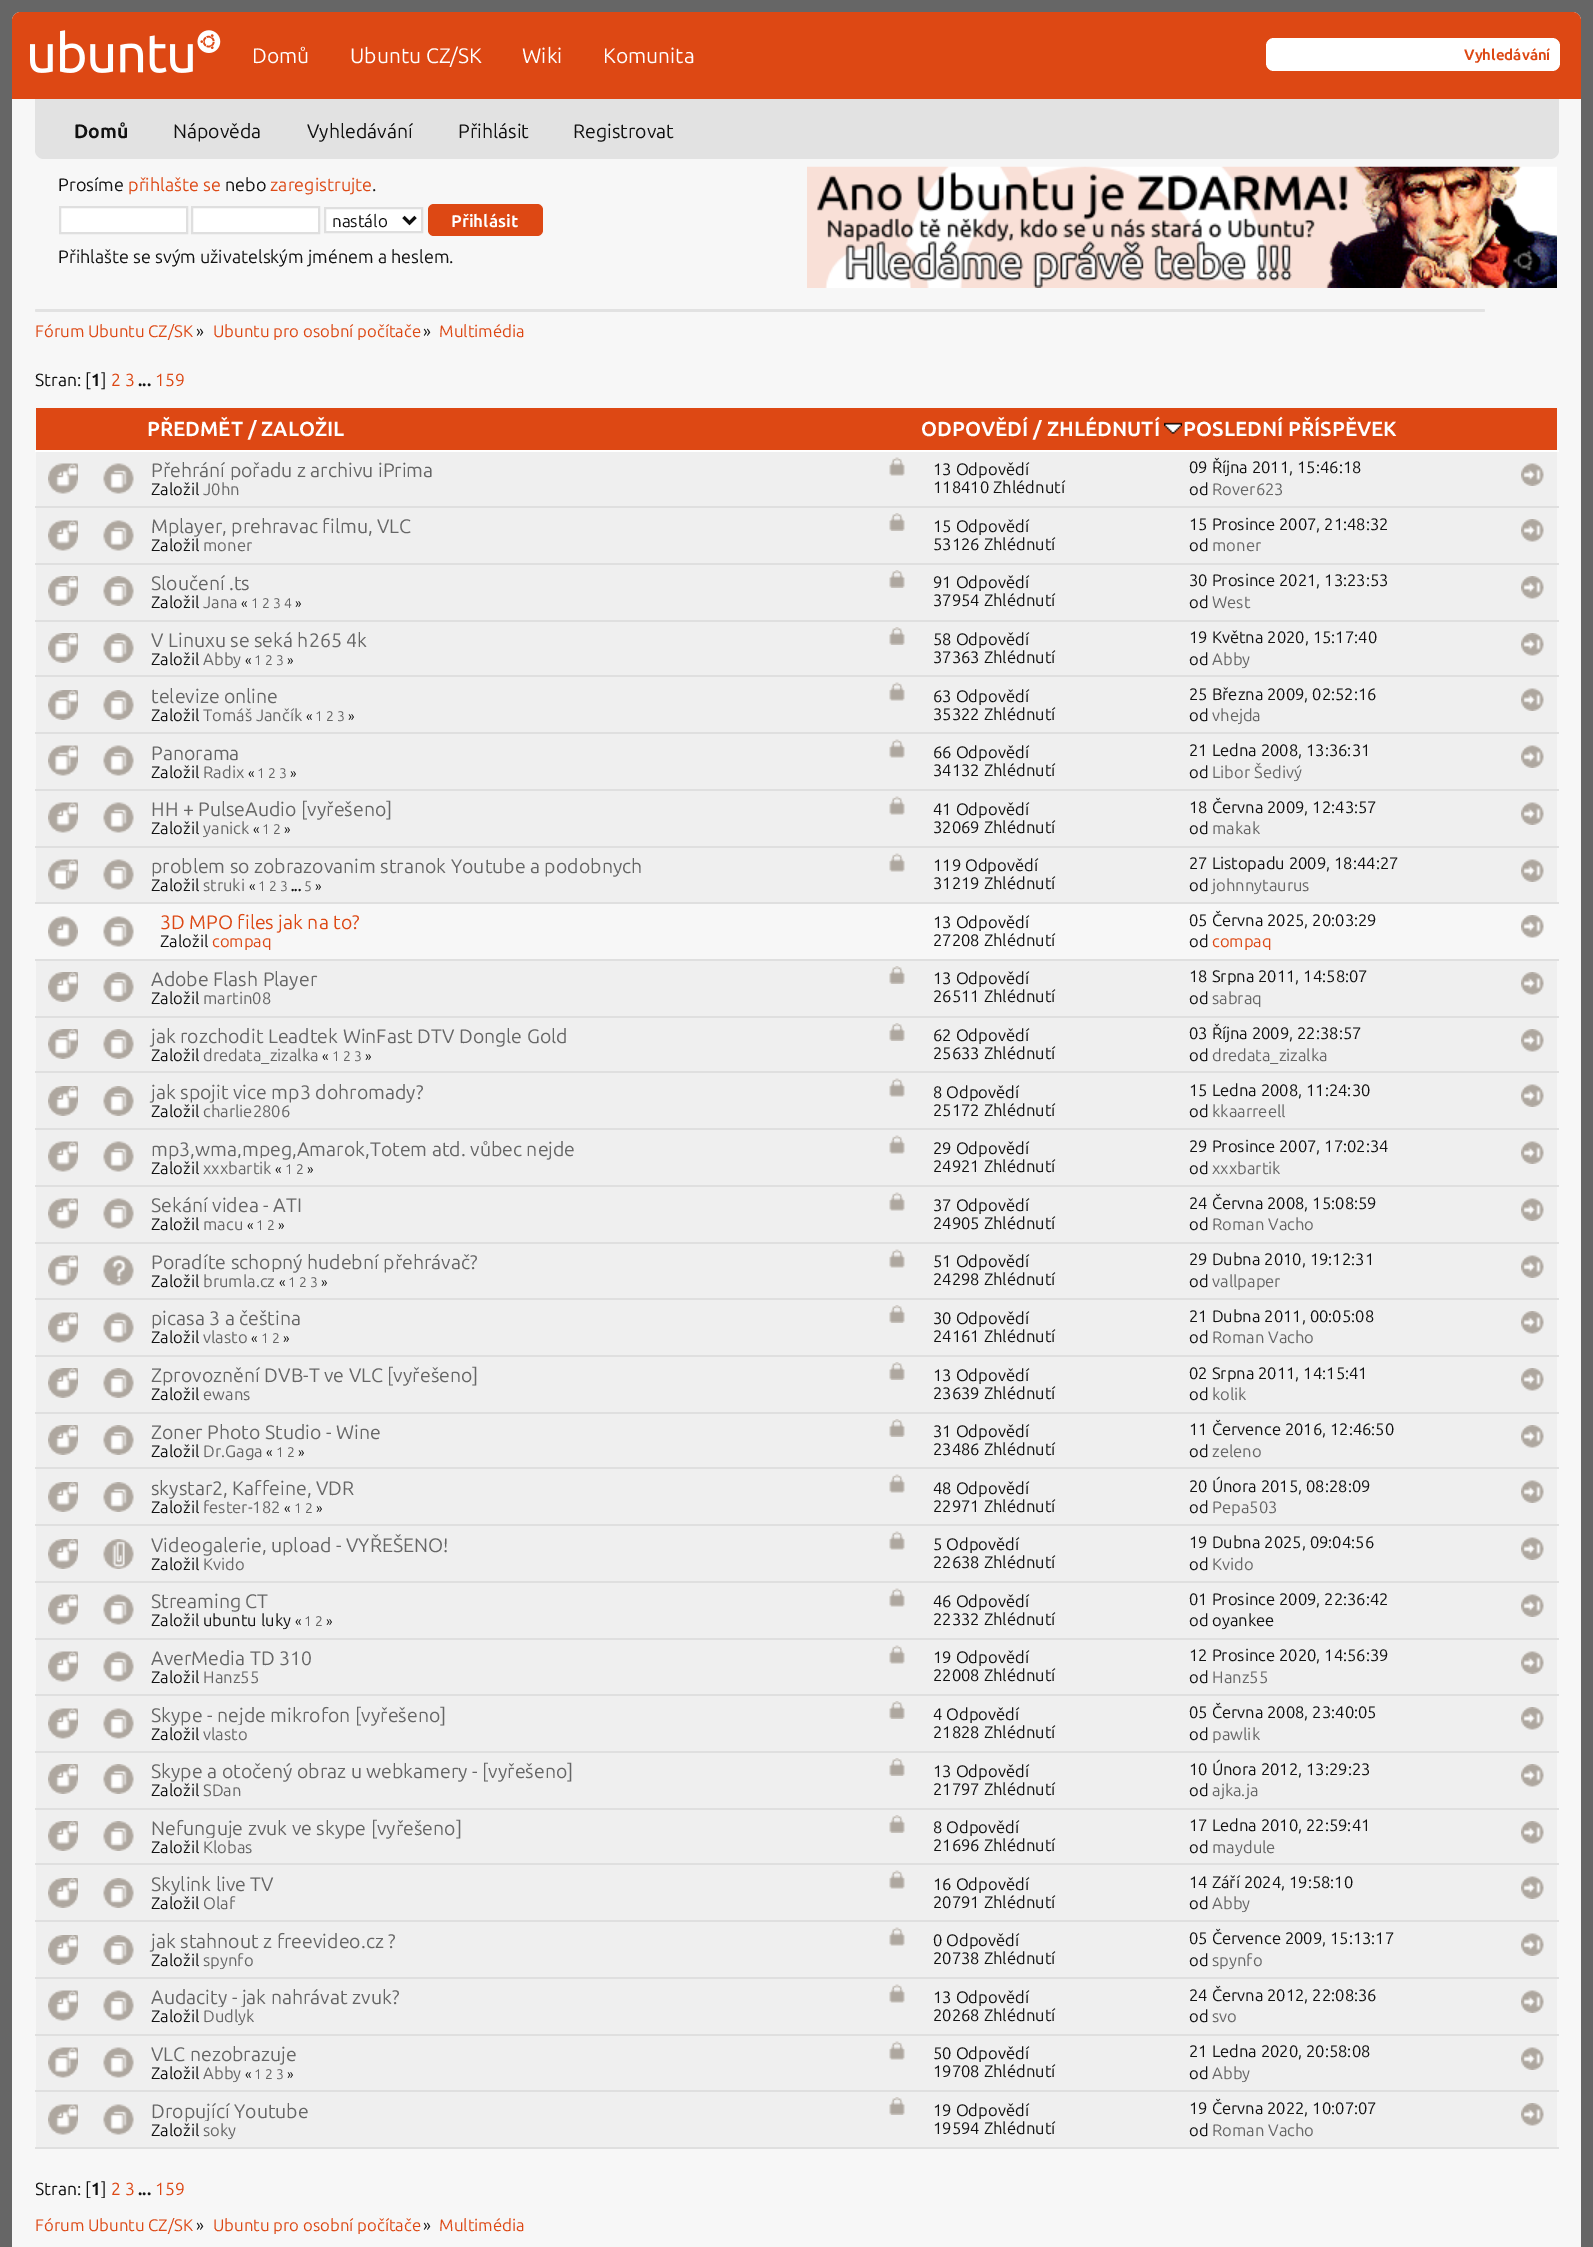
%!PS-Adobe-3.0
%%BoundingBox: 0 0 1593 2247
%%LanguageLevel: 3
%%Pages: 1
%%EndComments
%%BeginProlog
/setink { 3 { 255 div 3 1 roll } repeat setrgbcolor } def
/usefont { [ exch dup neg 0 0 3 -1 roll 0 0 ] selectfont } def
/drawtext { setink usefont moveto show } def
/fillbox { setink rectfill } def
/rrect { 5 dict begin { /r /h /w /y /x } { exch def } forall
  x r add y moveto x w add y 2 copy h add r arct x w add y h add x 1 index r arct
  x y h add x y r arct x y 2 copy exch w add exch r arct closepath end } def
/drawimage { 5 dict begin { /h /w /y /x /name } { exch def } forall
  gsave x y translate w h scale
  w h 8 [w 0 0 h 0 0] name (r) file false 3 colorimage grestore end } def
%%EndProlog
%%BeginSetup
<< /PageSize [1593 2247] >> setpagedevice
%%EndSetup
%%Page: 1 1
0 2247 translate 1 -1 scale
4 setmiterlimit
0 0 1593 2247 102 102 102 fillbox
247 247 247 setink
12 12 1569 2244 9 rrect fill
221 72 20 setink
21 12 moveto 1572 12 lineto 1577 12 1581 16 1581 21 curveto 1581 99 lineto 12 99 lineto 12 21 lineto 12 16 16 12 21 12 curveto closepath fill
(assets/img1.rgb) 30 30 191 43 drawimage
(Domů) 252 63 /Ubuntu-Regular 21 255 255 255 drawtext
(Ubuntu CZ/SK) 350 63 /Ubuntu-Regular 21 255 255 255 drawtext
(Wiki) 522 63 /Ubuntu-Regular 21 255 255 255 drawtext
(Komunita) 603 63 /Ubuntu-Regular 21 255 255 255 drawtext
1266 38 294 33 8 rrect fill
(Vyhledávání) 1464 60 /Ubuntu-Bold 15 221 72 20 drawtext
226 226 226 setink
35 99 moveto 1559 99 lineto 1559 150 lineto 1559 155 1555 159 1550 159 curveto 44 159 lineto 39 159 35 155 35 150 curveto closepath fill
(Domů) 74 138 /Ubuntu-Bold 19.5 17 17 17 drawtext
(Nápověda) 173 138 /Ubuntu-Regular 19.5 17 17 17 drawtext
(Vyhledávání) 307 138 /Ubuntu-Regular 19.5 17 17 17 drawtext
(Přihlásit) 458 138 /Ubuntu-Regular 19.5 17 17 17 drawtext
(Registrovat) 573 138 /Ubuntu-Regular 19.5 17 17 17 drawtext
(Prosíme) 58 191 /Ubuntu-Regular 18 17 17 17 drawtext
(přihlašte se) 128 191 /Ubuntu-Regular 18 221 72 20 drawtext
(nebo) 225 191 /Ubuntu-Regular 18 17 17 17 drawtext
(zaregistrujte) 270 191 /Ubuntu-Regular 18 221 72 20 drawtext
(.) 372 191 /Ubuntu-Regular 18 17 17 17 drawtext
255 255 255 setink
60 207 moveto 187 207 lineto 187 233 lineto 60 233 lineto closepath gsave fill grestore
223 223 223 setink
2 setlinewidth
stroke
255 255 255 setink
192 207 moveto 319 207 lineto 319 233 lineto 192 233 lineto closepath gsave fill grestore
223 223 223 setink
stroke
255 255 255 setink
325 208 moveto 422 208 lineto 422 232 lineto 325 232 lineto closepath gsave fill grestore
223 223 223 setink
stroke
17 17 17 setink
3 setlinewidth
403.5 217 moveto 409.5 223 lineto 415.5 217 lineto stroke
(nastálo) 332 227 /Ubuntu-Regular 17 17 17 17 drawtext
221 72 20 setink
428 204 115 32 6 rrect fill
(Přihlásit) 451 227 /Ubuntu-Bold 17 255 255 255 drawtext
(Přihlašte se svým uživatelským jménem a heslem.) 58 263 /Ubuntu-Regular 18 17 17 17 drawtext
(assets/img2.rgb) 807 166 750 122 drawimage
226 226 226 setink
35 309 1450 3 1.5 rrect fill
(Fórum Ubuntu CZ/SK) 35 337 /Ubuntu-Regular 16.75 221 72 20 drawtext
(») 196 337 /Ubuntu-Regular 16.75 17 17 17 drawtext
(Ubuntu pro osobní počítače) 213 337 /Ubuntu-Regular 16.75 221 72 20 drawtext
(») 423 337 /Ubuntu-Regular 16.75 17 17 17 drawtext
(Multimédia) 439 337 /Ubuntu-Regular 16.75 221 72 20 drawtext
(Stran: [) 35 386 /Ubuntu-Regular 17.5 17 17 17 drawtext
(1) 91 386 /Ubuntu-Bold 17.5 17 17 17 drawtext
(]) 101 386 /Ubuntu-Regular 17.5 17 17 17 drawtext
(2 3) 111 386 /Ubuntu-Regular 17.5 221 72 20 drawtext
(...) 138 386 /Ubuntu-Bold 17.5 17 17 17 drawtext
(159) 155 386 /Ubuntu-Regular 17.5 221 72 20 drawtext
35 450 1524 2 255 255 255 fillbox
36 408 1521 42 221 72 20 fillbox
(PŘEDMĚT / ZALOŽIL) 147 436 /Ubuntu-Bold 20.4 255 255 255 drawtext
(ODPOVĚDÍ / ZHLÉDNUTÍ) 921 436 /Ubuntu-Bold 20.4 255 255 255 drawtext
(assets/img3.rgb) 1164 422 18 12 drawimage
(POSLEDNÍ PŘÍSPĚVEK) 1183 436 /Ubuntu-Bold 20.4 255 255 255 drawtext
36 452 1521 54 239 239 239 fillbox
(assets/img4.rgb) 48 463 30 31 drawimage
(assets/img5.rgb) 103 463 31 31 drawimage
(assets/img6.rgb) 889 457 16 19 drawimage
(Přehrání pořadu z archivu iPrima) 151 477 /Ubuntu-Regular 19.5 102 102 102 drawtext
(Založil) 151 495 /Ubuntu-Regular 16.6 17 17 17 drawtext
(J0hn) 203 495 /Ubuntu-Regular 16.6 102 102 102 drawtext
231 480 2 1 239 239 239 fillbox
(13 Odpovědí) 933 475 /Ubuntu-Regular 16.6 17 17 17 drawtext
(118410 Zhlédnutí) 933 493 /Ubuntu-Regular 16.6 17 17 17 drawtext
35 506 1524 2 223 223 223 fillbox
(09 Října 2011, 15:46:18) 1189 473 /Ubuntu-Regular 16.6 17 17 17 drawtext
(assets/img7.rgb) 1521 463 23 23 drawimage
(od) 1189 495 /Ubuntu-Regular 16.6 17 17 17 drawtext
(Rover623) 1212 495 /Ubuntu-Regular 16.6 102 102 102 drawtext
36 508 1521 55 239 239 239 fillbox
(assets/img4.rgb) 48 520 30 31 drawimage
(assets/img5.rgb) 103 520 31 31 drawimage
(assets/img8.rgb) 889 513 16 18 drawimage
(Mplayer, prehravac filmu, VLC) 151 533 /Ubuntu-Regular 19.5 102 102 102 drawtext
(Založil) 151 551 /Ubuntu-Regular 16.6 17 17 17 drawtext
(moner) 203 551 /Ubuntu-Regular 16.6 102 102 102 drawtext
(15 Odpovědí) 933 532 /Ubuntu-Regular 16.6 17 17 17 drawtext
(53126 Zhlédnutí) 933 550 /Ubuntu-Regular 16.6 17 17 17 drawtext
35 563 1524 2 223 223 223 fillbox
(15 Prosince 2007, 21:48:32) 1189 530 /Ubuntu-Regular 16.6 17 17 17 drawtext
(assets/img9.rgb) 1521 519 23 23 drawimage
(od) 1189 551 /Ubuntu-Regular 16.6 17 17 17 drawtext
(moner) 1212 551 /Ubuntu-Regular 16.6 102 102 102 drawtext
36 565 1521 55 239 239 239 fillbox
(assets/img10.rgb) 48 576 30 30 drawimage
(assets/img11.rgb) 103 576 31 30 drawimage
(assets/img8.rgb) 889 570 16 18 drawimage
(Sloučení .ts) 151 590 /Ubuntu-Regular 19.5 102 102 102 drawtext
(Založil) 151 608 /Ubuntu-Regular 16.6 17 17 17 drawtext
(Jana) 203 608 /Ubuntu-Regular 16.6 102 102 102 drawtext
(«) 241 608 /Ubuntu-Regular 14 17 17 17 drawtext
(1 2 3 4) 251 608 /Ubuntu-Regular 14 102 102 102 drawtext
(») 295 608 /Ubuntu-Regular 14 17 17 17 drawtext
(91 Odpovědí) 933 588 /Ubuntu-Regular 16.6 17 17 17 drawtext
(37954 Zhlédnutí) 933 606 /Ubuntu-Regular 16.6 17 17 17 drawtext
35 620 1524 2 223 223 223 fillbox
(30 Prosince 2021, 13:23:53) 1189 586 /Ubuntu-Regular 16.6 17 17 17 drawtext
(assets/img9.rgb) 1521 576 23 23 drawimage
(od) 1189 608 /Ubuntu-Regular 16.6 17 17 17 drawtext
(West) 1212 608 /Ubuntu-Regular 16.6 102 102 102 drawtext
36 622 1521 53 239 239 239 fillbox
(assets/img10.rgb) 48 633 30 30 drawimage
(assets/img11.rgb) 103 633 31 30 drawimage
(assets/img8.rgb) 889 627 16 18 drawimage
(V Linuxu se seká h265 4k) 151 647 /Ubuntu-Regular 19.5 102 102 102 drawtext
(Založil) 151 665 /Ubuntu-Regular 16.6 17 17 17 drawtext
(Abby) 203 665 /Ubuntu-Regular 16.6 102 102 102 drawtext
(«) 245 665 /Ubuntu-Regular 14 17 17 17 drawtext
(1 2 3) 254 665 /Ubuntu-Regular 14 102 102 102 drawtext
(») 287 665 /Ubuntu-Regular 14 17 17 17 drawtext
(58 Odpovědí) 933 645 /Ubuntu-Regular 16.6 17 17 17 drawtext
(37363 Zhlédnutí) 933 663 /Ubuntu-Regular 16.6 17 17 17 drawtext
35 675 1524 2 223 223 223 fillbox
(19 Května 2020, 15:17:40) 1189 643 /Ubuntu-Regular 16.6 17 17 17 drawtext
(assets/img9.rgb) 1521 633 23 23 drawimage
(od) 1189 665 /Ubuntu-Regular 16.6 17 17 17 drawtext
(Abby) 1212 665 /Ubuntu-Regular 16.6 102 102 102 drawtext
36 677 1521 55 239 239 239 fillbox
(assets/img10.rgb) 48 690 30 30 drawimage
(assets/img11.rgb) 103 690 31 30 drawimage
(assets/img6.rgb) 889 682 16 19 drawimage
(televize online) 151 703 /Ubuntu-Regular 19.5 102 102 102 drawtext
(Založil) 151 721 /Ubuntu-Regular 16.6 17 17 17 drawtext
(Tomáš Jančík) 203 721 /Ubuntu-Regular 16.6 102 102 102 drawtext
(«) 306 721 /Ubuntu-Regular 14 17 17 17 drawtext
(1 2 3) 315 721 /Ubuntu-Regular 14 102 102 102 drawtext
(») 348 721 /Ubuntu-Regular 14 17 17 17 drawtext
(63 Odpovědí) 933 702 /Ubuntu-Regular 16.6 17 17 17 drawtext
(35322 Zhlédnutí) 933 720 /Ubuntu-Regular 16.6 17 17 17 drawtext
35 732 1524 2 223 223 223 fillbox
(25 Března 2009, 02:52:16) 1189 700 /Ubuntu-Regular 16.6 17 17 17 drawtext
(assets/img7.rgb) 1521 688 23 23 drawimage
(od) 1189 721 /Ubuntu-Regular 16.6 17 17 17 drawtext
(vhejda) 1212 721 /Ubuntu-Regular 16.6 102 102 102 drawtext
36 734 1521 55 239 239 239 fillbox
(assets/img12.rgb) 48 745 30 31 drawimage
(assets/img5.rgb) 103 745 31 31 drawimage
(assets/img6.rgb) 889 739 16 19 drawimage
(Panorama) 151 760 /Ubuntu-Regular 19.5 102 102 102 drawtext
(Založil) 151 778 /Ubuntu-Regular 16.6 17 17 17 drawtext
(Radix) 203 778 /Ubuntu-Regular 16.6 102 102 102 drawtext
(«) 248 778 /Ubuntu-Regular 14 17 17 17 drawtext
(1 2 3) 257 778 /Ubuntu-Regular 14 102 102 102 drawtext
(») 290 778 /Ubuntu-Regular 14 17 17 17 drawtext
(66 Odpovědí) 933 758 /Ubuntu-Regular 16.6 17 17 17 drawtext
(34132 Zhlédnutí) 933 776 /Ubuntu-Regular 16.6 17 17 17 drawtext
35 789 1524 2 223 223 223 fillbox
(21 Ledna 2008, 13:36:31) 1189 756 /Ubuntu-Regular 16.6 17 17 17 drawtext
(assets/img7.rgb) 1521 745 23 23 drawimage
(od) 1189 778 /Ubuntu-Regular 16.6 17 17 17 drawtext
(Libor Šedivý) 1212 778 /Ubuntu-Regular 16.6 102 102 102 drawtext
36 791 1521 55 239 239 239 fillbox
(assets/img4.rgb) 48 802 30 31 drawimage
(assets/img5.rgb) 103 802 31 31 drawimage
(assets/img6.rgb) 889 796 16 19 drawimage
(HH + PulseAudio [vyřešeno]) 151 816 /Ubuntu-Regular 19.5 102 102 102 drawtext
(Založil) 151 834 /Ubuntu-Regular 16.6 17 17 17 drawtext
(yanick) 203 834 /Ubuntu-Regular 16.6 102 102 102 drawtext
(«) 253 834 /Ubuntu-Regular 14 17 17 17 drawtext
(1 2) 262 834 /Ubuntu-Regular 14 102 102 102 drawtext
(») 284 834 /Ubuntu-Regular 14 17 17 17 drawtext
(41 Odpovědí) 933 815 /Ubuntu-Regular 16.6 17 17 17 drawtext
(32069 Zhlédnutí) 933 833 /Ubuntu-Regular 16.6 17 17 17 drawtext
35 846 1524 2 223 223 223 fillbox
(18 Června 2009, 12:43:57) 1189 813 /Ubuntu-Regular 16.6 17 17 17 drawtext
(assets/img7.rgb) 1521 802 23 23 drawimage
(od) 1189 834 /Ubuntu-Regular 16.6 17 17 17 drawtext
(makak) 1212 834 /Ubuntu-Regular 16.6 102 102 102 drawtext
36 848 1521 54 239 239 239 fillbox
(assets/img13.rgb) 48 859 30 31 drawimage
(assets/img5.rgb) 103 859 31 31 drawimage
(assets/img6.rgb) 889 853 16 19 drawimage
(problem so zobrazovanim stranok Youtube a podobnych) 151 873 /Ubuntu-Regular 19.5 102 102 102 drawtext
(Založil) 151 891 /Ubuntu-Regular 16.6 17 17 17 drawtext
(struki) 203 891 /Ubuntu-Regular 16.6 102 102 102 drawtext
(«) 249 891 /Ubuntu-Regular 14 17 17 17 drawtext
(1 2 3) 258 891 /Ubuntu-Regular 14 102 102 102 drawtext
(...) 291 891 /Ubuntu-Bold 14 17 17 17 drawtext
(5) 304 891 /Ubuntu-Regular 14 102 102 102 drawtext
(») 315 891 /Ubuntu-Regular 14 17 17 17 drawtext
(119 Odpovědí) 933 871 /Ubuntu-Regular 16.6 17 17 17 drawtext
(31219 Zhlédnutí) 933 889 /Ubuntu-Regular 16.6 17 17 17 drawtext
35 902 1524 2 223 223 223 fillbox
(27 Listopadu 2009, 18:44:27) 1189 869 /Ubuntu-Regular 16.6 17 17 17 drawtext
(assets/img7.rgb) 1521 859 23 23 drawimage
(od) 1189 891 /Ubuntu-Regular 16.6 17 17 17 drawtext
(johnnytaurus) 1212 891 /Ubuntu-Regular 16.6 102 102 102 drawtext
(assets/img14.rgb) 48 916 30 31 drawimage
(assets/img15.rgb) 103 916 31 31 drawimage
(3D MPO files jak na to?) 160 929 /Ubuntu-Regular 19.5 221 72 20 drawtext
(Založil) 160 947 /Ubuntu-Regular 16.6 17 17 17 drawtext
(compaq) 212 947 /Ubuntu-Regular 16.6 221 72 20 drawtext
(13 Odpovědí) 933 928 /Ubuntu-Regular 16.6 17 17 17 drawtext
(27208 Zhlédnutí) 933 946 /Ubuntu-Regular 16.6 17 17 17 drawtext
35 959 1524 2 223 223 223 fillbox
(05 Června 2025, 20:03:29) 1189 926 /Ubuntu-Regular 16.6 17 17 17 drawtext
(assets/img16.rgb) 1521 915 23 23 drawimage
(od) 1189 947 /Ubuntu-Regular 16.6 17 17 17 drawtext
(compaq) 1212 947 /Ubuntu-Regular 16.6 221 72 20 drawtext
36 961 1521 55 239 239 239 fillbox
(assets/img17.rgb) 48 972 30 30 drawimage
(assets/img11.rgb) 103 972 31 30 drawimage
(assets/img8.rgb) 889 966 16 18 drawimage
(Adobe Flash Player) 151 986 /Ubuntu-Regular 19.5 102 102 102 drawtext
(Založil) 151 1004 /Ubuntu-Regular 16.6 17 17 17 drawtext
(martin08) 203 1004 /Ubuntu-Regular 16.6 102 102 102 drawtext
(13 Odpovědí) 933 984 /Ubuntu-Regular 16.6 17 17 17 drawtext
(26511 Zhlédnutí) 933 1002 /Ubuntu-Regular 16.6 17 17 17 drawtext
35 1016 1524 2 223 223 223 fillbox
(18 Srpna 2011, 14:58:07) 1189 982 /Ubuntu-Regular 16.6 17 17 17 drawtext
(assets/img9.rgb) 1521 972 23 23 drawimage
(od) 1189 1004 /Ubuntu-Regular 16.6 17 17 17 drawtext
(sabraq) 1212 1004 /Ubuntu-Regular 16.6 102 102 102 drawtext
36 1018 1521 53 239 239 239 fillbox
(assets/img10.rgb) 48 1029 30 30 drawimage
(assets/img11.rgb) 103 1029 31 30 drawimage
(assets/img8.rgb) 889 1023 16 18 drawimage
(jak rozchodit Leadtek WinFast DTV Dongle Gold) 151 1043 /Ubuntu-Regular 19.5 102 102 102 drawtext
(Založil) 151 1061 /Ubuntu-Regular 16.6 17 17 17 drawtext
(dredata_zizalka) 203 1061 /Ubuntu-Regular 16.6 102 102 102 drawtext
(«) 322 1061 /Ubuntu-Regular 14 17 17 17 drawtext
(1 2 3) 332 1061 /Ubuntu-Regular 14 102 102 102 drawtext
(») 365 1061 /Ubuntu-Regular 14 17 17 17 drawtext
(62 Odpovědí) 933 1041 /Ubuntu-Regular 16.6 17 17 17 drawtext
(25633 Zhlédnutí) 933 1059 /Ubuntu-Regular 16.6 17 17 17 drawtext
35 1071 1524 2 223 223 223 fillbox
(03 Října 2009, 22:38:57) 1189 1039 /Ubuntu-Regular 16.6 17 17 17 drawtext
(assets/img9.rgb) 1521 1029 23 23 drawimage
(od) 1189 1061 /Ubuntu-Regular 16.6 17 17 17 drawtext
(dredata_zizalka) 1212 1061 /Ubuntu-Regular 16.6 102 102 102 drawtext
36 1073 1521 55 239 239 239 fillbox
(assets/img17.rgb) 48 1086 30 30 drawimage
(assets/img11.rgb) 103 1086 31 30 drawimage
(assets/img6.rgb) 889 1078 16 19 drawimage
(jak spojit vice mp3 dohromady?) 151 1099 /Ubuntu-Regular 19.5 102 102 102 drawtext
(Založil) 151 1117 /Ubuntu-Regular 16.6 17 17 17 drawtext
(charlie2806) 203 1117 /Ubuntu-Regular 16.6 102 102 102 drawtext
(8 Odpovědí) 933 1098 /Ubuntu-Regular 16.6 17 17 17 drawtext
(25172 Zhlédnutí) 933 1116 /Ubuntu-Regular 16.6 17 17 17 drawtext
35 1128 1524 2 223 223 223 fillbox
(15 Ledna 2008, 11:24:30) 1189 1096 /Ubuntu-Regular 16.6 17 17 17 drawtext
(assets/img7.rgb) 1521 1084 23 23 drawimage
(od) 1189 1117 /Ubuntu-Regular 16.6 17 17 17 drawtext
(kkaarreell) 1212 1117 /Ubuntu-Regular 16.6 102 102 102 drawtext
36 1130 1521 55 239 239 239 fillbox
(assets/img4.rgb) 48 1141 30 31 drawimage
(assets/img5.rgb) 103 1141 31 31 drawimage
(assets/img6.rgb) 889 1135 16 19 drawimage
(mp3,wma,mpeg,Amarok,Totem atd. vůbec nejde) 151 1156 /Ubuntu-Regular 19.5 102 102 102 drawtext
(Založil) 151 1174 /Ubuntu-Regular 16.6 17 17 17 drawtext
(xxxbartik) 203 1174 /Ubuntu-Regular 16.6 102 102 102 drawtext
238 1158 24 2 239 239 239 fillbox
(«) 275 1174 /Ubuntu-Regular 14 17 17 17 drawtext
(1 2) 285 1174 /Ubuntu-Regular 14 102 102 102 drawtext
(») 307 1174 /Ubuntu-Regular 14 17 17 17 drawtext
(29 Odpovědí) 933 1154 /Ubuntu-Regular 16.6 17 17 17 drawtext
(24921 Zhlédnutí) 933 1172 /Ubuntu-Regular 16.6 17 17 17 drawtext
35 1185 1524 2 223 223 223 fillbox
(29 Prosince 2007, 17:02:34) 1189 1152 /Ubuntu-Regular 16.6 17 17 17 drawtext
(assets/img7.rgb) 1521 1141 23 23 drawimage
(od) 1189 1174 /Ubuntu-Regular 16.6 17 17 17 drawtext
(xxxbartik) 1212 1174 /Ubuntu-Regular 16.6 102 102 102 drawtext
36 1187 1521 55 239 239 239 fillbox
(assets/img4.rgb) 48 1198 30 31 drawimage
(assets/img5.rgb) 103 1198 31 31 drawimage
(assets/img6.rgb) 889 1192 16 19 drawimage
(Sekání videa - ATI) 151 1212 /Ubuntu-Regular 19.5 102 102 102 drawtext
(Založil) 151 1230 /Ubuntu-Regular 16.6 17 17 17 drawtext
(macu) 203 1230 /Ubuntu-Regular 16.6 102 102 102 drawtext
(«) 247 1230 /Ubuntu-Regular 14 17 17 17 drawtext
(1 2) 256 1230 /Ubuntu-Regular 14 102 102 102 drawtext
(») 278 1230 /Ubuntu-Regular 14 17 17 17 drawtext
(37 Odpovědí) 933 1211 /Ubuntu-Regular 16.6 17 17 17 drawtext
(24905 Zhlédnutí) 933 1229 /Ubuntu-Regular 16.6 17 17 17 drawtext
35 1242 1524 2 223 223 223 fillbox
(24 Června 2008, 15:08:59) 1189 1209 /Ubuntu-Regular 16.6 17 17 17 drawtext
(assets/img7.rgb) 1521 1198 23 23 drawimage
(od) 1189 1230 /Ubuntu-Regular 16.6 17 17 17 drawtext
(Roman Vacho) 1212 1230 /Ubuntu-Regular 16.6 102 102 102 drawtext
36 1244 1521 54 239 239 239 fillbox
(assets/img12.rgb) 48 1255 30 31 drawimage
(assets/img18.rgb) 103 1255 31 31 drawimage
(assets/img6.rgb) 889 1249 16 19 drawimage
(Poradíte schopný hudební přehrávač?) 151 1269 /Ubuntu-Regular 19.5 102 102 102 drawtext
(Založil) 151 1287 /Ubuntu-Regular 16.6 17 17 17 drawtext
(brumla.cz) 203 1287 /Ubuntu-Regular 16.6 102 102 102 drawtext
272 1272 2 1 239 239 239 fillbox
(«) 279 1287 /Ubuntu-Regular 14 17 17 17 drawtext
(1 2 3) 288 1287 /Ubuntu-Regular 14 102 102 102 drawtext
(») 321 1287 /Ubuntu-Regular 14 17 17 17 drawtext
(51 Odpovědí) 933 1267 /Ubuntu-Regular 16.6 17 17 17 drawtext
(24298 Zhlédnutí) 933 1285 /Ubuntu-Regular 16.6 17 17 17 drawtext
35 1298 1524 2 223 223 223 fillbox
(29 Dubna 2010, 19:12:31) 1189 1265 /Ubuntu-Regular 16.6 17 17 17 drawtext
(assets/img7.rgb) 1521 1255 23 23 drawimage
(od) 1189 1287 /Ubuntu-Regular 16.6 17 17 17 drawtext
(vallpaper) 1212 1287 /Ubuntu-Regular 16.6 102 102 102 drawtext
36 1300 1521 55 239 239 239 fillbox
(assets/img4.rgb) 48 1312 30 31 drawimage
(assets/img5.rgb) 103 1312 31 31 drawimage
(assets/img8.rgb) 889 1305 16 18 drawimage
(picasa 3 a čeština) 151 1325 /Ubuntu-Regular 19.5 102 102 102 drawtext
(Založil) 151 1343 /Ubuntu-Regular 16.6 17 17 17 drawtext
(vlasto) 203 1343 /Ubuntu-Regular 16.6 102 102 102 drawtext
(«) 251 1343 /Ubuntu-Regular 14 17 17 17 drawtext
(1 2) 261 1343 /Ubuntu-Regular 14 102 102 102 drawtext
(») 283 1343 /Ubuntu-Regular 14 17 17 17 drawtext
(30 Odpovědí) 933 1324 /Ubuntu-Regular 16.6 17 17 17 drawtext
(24161 Zhlédnutí) 933 1342 /Ubuntu-Regular 16.6 17 17 17 drawtext
35 1355 1524 2 223 223 223 fillbox
(21 Dubna 2011, 00:05:08) 1189 1322 /Ubuntu-Regular 16.6 17 17 17 drawtext
(assets/img9.rgb) 1521 1311 23 23 drawimage
(od) 1189 1343 /Ubuntu-Regular 16.6 17 17 17 drawtext
(Roman Vacho) 1212 1343 /Ubuntu-Regular 16.6 102 102 102 drawtext
36 1357 1521 55 239 239 239 fillbox
(assets/img17.rgb) 48 1368 30 30 drawimage
(assets/img11.rgb) 103 1368 31 30 drawimage
(assets/img8.rgb) 889 1362 16 18 drawimage
(Zprovoznění DVB-T ve VLC [vyřešeno]) 151 1382 /Ubuntu-Regular 19.5 102 102 102 drawtext
(Založil) 151 1400 /Ubuntu-Regular 16.6 17 17 17 drawtext
(ewans) 203 1400 /Ubuntu-Regular 16.6 102 102 102 drawtext
(13 Odpovědí) 933 1381 /Ubuntu-Regular 16.6 17 17 17 drawtext
(23639 Zhlédnutí) 933 1399 /Ubuntu-Regular 16.6 17 17 17 drawtext
35 1412 1524 2 223 223 223 fillbox
(02 Srpna 2011, 14:15:41) 1189 1379 /Ubuntu-Regular 16.6 17 17 17 drawtext
(assets/img9.rgb) 1521 1368 23 23 drawimage
(od) 1189 1400 /Ubuntu-Regular 16.6 17 17 17 drawtext
(kolik) 1212 1400 /Ubuntu-Regular 16.6 102 102 102 drawtext
36 1414 1521 53 239 239 239 fillbox
(assets/img17.rgb) 48 1425 30 30 drawimage
(assets/img11.rgb) 103 1425 31 30 drawimage
(assets/img8.rgb) 889 1419 16 18 drawimage
(Zoner Photo Studio - Wine) 151 1439 /Ubuntu-Regular 19.5 102 102 102 drawtext
(Založil) 151 1457 /Ubuntu-Regular 16.6 17 17 17 drawtext
(Dr.Gaga) 203 1457 /Ubuntu-Regular 16.6 102 102 102 drawtext
(«) 266 1457 /Ubuntu-Regular 14 17 17 17 drawtext
(1 2) 276 1457 /Ubuntu-Regular 14 102 102 102 drawtext
(») 298 1457 /Ubuntu-Regular 14 17 17 17 drawtext
(31 Odpovědí) 933 1437 /Ubuntu-Regular 16.6 17 17 17 drawtext
(23486 Zhlédnutí) 933 1455 /Ubuntu-Regular 16.6 17 17 17 drawtext
35 1467 1524 2 223 223 223 fillbox
(11 Července 2016, 12:46:50) 1189 1435 /Ubuntu-Regular 16.6 17 17 17 drawtext
(assets/img9.rgb) 1521 1425 23 23 drawimage
(od) 1189 1457 /Ubuntu-Regular 16.6 17 17 17 drawtext
(zeleno) 1212 1457 /Ubuntu-Regular 16.6 102 102 102 drawtext
36 1469 1521 55 239 239 239 fillbox
(assets/img17.rgb) 48 1482 30 30 drawimage
(assets/img11.rgb) 103 1482 31 30 drawimage
(assets/img6.rgb) 889 1474 16 19 drawimage
(skystar2, Kaffeine, VDR) 151 1495 /Ubuntu-Regular 19.5 102 102 102 drawtext
(Založil) 151 1513 /Ubuntu-Regular 16.6 17 17 17 drawtext
(fester-182) 203 1513 /Ubuntu-Regular 16.6 102 102 102 drawtext
(«) 284 1513 /Ubuntu-Regular 14 17 17 17 drawtext
(1 2) 294 1513 /Ubuntu-Regular 14 102 102 102 drawtext
(») 316 1513 /Ubuntu-Regular 14 17 17 17 drawtext
(48 Odpovědí) 933 1494 /Ubuntu-Regular 16.6 17 17 17 drawtext
(22971 Zhlédnutí) 933 1512 /Ubuntu-Regular 16.6 17 17 17 drawtext
35 1524 1524 2 223 223 223 fillbox
(20 Února 2015, 08:28:09) 1189 1492 /Ubuntu-Regular 16.6 17 17 17 drawtext
(assets/img7.rgb) 1521 1480 23 23 drawimage
(od) 1189 1513 /Ubuntu-Regular 16.6 17 17 17 drawtext
(Pepa503) 1212 1513 /Ubuntu-Regular 16.6 102 102 102 drawtext
36 1526 1521 55 239 239 239 fillbox
(assets/img17.rgb) 48 1539 30 30 drawimage
(assets/img19.rgb) 103 1539 31 30 drawimage
(assets/img6.rgb) 889 1531 16 19 drawimage
(Videogalerie, upload - VYŘEŠENO!) 151 1552 /Ubuntu-Regular 19.5 102 102 102 drawtext
(Založil) 151 1570 /Ubuntu-Regular 16.6 17 17 17 drawtext
(Kvido) 203 1570 /Ubuntu-Regular 16.6 102 102 102 drawtext
(5 Odpovědí) 933 1550 /Ubuntu-Regular 16.6 17 17 17 drawtext
(22638 Zhlédnutí) 933 1568 /Ubuntu-Regular 16.6 17 17 17 drawtext
35 1581 1524 2 223 223 223 fillbox
(19 Dubna 2025, 09:04:56) 1189 1548 /Ubuntu-Regular 16.6 17 17 17 drawtext
(assets/img7.rgb) 1521 1537 23 23 drawimage
(od) 1189 1570 /Ubuntu-Regular 16.6 17 17 17 drawtext
(Kvido) 1212 1570 /Ubuntu-Regular 16.6 102 102 102 drawtext
36 1583 1521 55 239 239 239 fillbox
(assets/img4.rgb) 48 1594 30 31 drawimage
(assets/img5.rgb) 103 1594 31 31 drawimage
(assets/img6.rgb) 889 1588 16 19 drawimage
(Streaming CT) 151 1608 /Ubuntu-Regular 19.5 102 102 102 drawtext
(Založil ubuntu luky) 151 1626 /Ubuntu-Regular 16.6 17 17 17 drawtext
(«) 295 1626 /Ubuntu-Regular 14 17 17 17 drawtext
(1 2) 304 1626 /Ubuntu-Regular 14 102 102 102 drawtext
(») 326 1626 /Ubuntu-Regular 14 17 17 17 drawtext
(46 Odpovědí) 933 1607 /Ubuntu-Regular 16.6 17 17 17 drawtext
(22332 Zhlédnutí) 933 1625 /Ubuntu-Regular 16.6 17 17 17 drawtext
35 1638 1524 2 223 223 223 fillbox
(01 Prosince 2009, 22:36:42) 1189 1605 /Ubuntu-Regular 16.6 17 17 17 drawtext
(assets/img7.rgb) 1521 1594 23 23 drawimage
(od oyankee) 1189 1626 /Ubuntu-Regular 16.6 17 17 17 drawtext
36 1640 1521 54 239 239 239 fillbox
(assets/img4.rgb) 48 1651 30 31 drawimage
(assets/img5.rgb) 103 1651 31 31 drawimage
(assets/img6.rgb) 889 1645 16 19 drawimage
(AverMedia TD 310) 151 1665 /Ubuntu-Regular 19.5 102 102 102 drawtext
(Založil) 151 1683 /Ubuntu-Regular 16.6 17 17 17 drawtext
(Hanz55) 203 1683 /Ubuntu-Regular 16.6 102 102 102 drawtext
(19 Odpovědí) 933 1663 /Ubuntu-Regular 16.6 17 17 17 drawtext
(22008 Zhlédnutí) 933 1681 /Ubuntu-Regular 16.6 17 17 17 drawtext
35 1694 1524 2 223 223 223 fillbox
(12 Prosince 2020, 14:56:39) 1189 1661 /Ubuntu-Regular 16.6 17 17 17 drawtext
(assets/img7.rgb) 1521 1651 23 23 drawimage
(od) 1189 1683 /Ubuntu-Regular 16.6 17 17 17 drawtext
(Hanz55) 1212 1683 /Ubuntu-Regular 16.6 102 102 102 drawtext
36 1696 1521 55 239 239 239 fillbox
(assets/img4.rgb) 48 1708 30 31 drawimage
(assets/img5.rgb) 103 1708 31 31 drawimage
(assets/img8.rgb) 889 1701 16 18 drawimage
(Skype - nejde mikrofon [vyřešeno]) 151 1722 /Ubuntu-Regular 19.5 102 102 102 drawtext
(Založil) 151 1740 /Ubuntu-Regular 16.6 17 17 17 drawtext
(vlasto) 203 1740 /Ubuntu-Regular 16.6 102 102 102 drawtext
238 1725 4 1 239 239 239 fillbox
(4 Odpovědí) 933 1720 /Ubuntu-Regular 16.6 17 17 17 drawtext
(21828 Zhlédnutí) 933 1738 /Ubuntu-Regular 16.6 17 17 17 drawtext
35 1751 1524 2 223 223 223 fillbox
(05 Června 2008, 23:40:05) 1189 1718 /Ubuntu-Regular 16.6 17 17 17 drawtext
(assets/img9.rgb) 1521 1707 23 23 drawimage
(od) 1189 1740 /Ubuntu-Regular 16.6 17 17 17 drawtext
(pawlik) 1212 1740 /Ubuntu-Regular 16.6 102 102 102 drawtext
36 1753 1521 55 239 239 239 fillbox
(assets/img17.rgb) 48 1764 30 30 drawimage
(assets/img11.rgb) 103 1764 31 30 drawimage
(assets/img8.rgb) 889 1758 16 18 drawimage
(Skype a otočený obraz u webkamery - [vyřešeno]) 151 1778 /Ubuntu-Regular 19.5 102 102 102 drawtext
(Založil) 151 1796 /Ubuntu-Regular 16.6 17 17 17 drawtext
(SDan) 203 1796 /Ubuntu-Regular 16.6 102 102 102 drawtext
(13 Odpovědí) 933 1777 /Ubuntu-Regular 16.6 17 17 17 drawtext
(21797 Zhlédnutí) 933 1795 /Ubuntu-Regular 16.6 17 17 17 drawtext
35 1808 1524 2 223 223 223 fillbox
(10 Února 2012, 13:29:23) 1189 1775 /Ubuntu-Regular 16.6 17 17 17 drawtext
(assets/img9.rgb) 1521 1764 23 23 drawimage
(od) 1189 1796 /Ubuntu-Regular 16.6 17 17 17 drawtext
(ajka.ja) 1212 1796 /Ubuntu-Regular 16.6 102 102 102 drawtext
36 1810 1521 53 239 239 239 fillbox
(assets/img17.rgb) 48 1821 30 30 drawimage
(assets/img11.rgb) 103 1821 31 30 drawimage
(assets/img8.rgb) 889 1815 16 18 drawimage
(Nefunguje zvuk ve skype [vyřešeno]) 151 1835 /Ubuntu-Regular 19.5 102 102 102 drawtext
(Založil) 151 1853 /Ubuntu-Regular 16.6 17 17 17 drawtext
(Klobas) 203 1853 /Ubuntu-Regular 16.6 102 102 102 drawtext
207 1838 23 1 239 239 239 fillbox
(8 Odpovědí) 933 1833 /Ubuntu-Regular 16.6 17 17 17 drawtext
(21696 Zhlédnutí) 933 1851 /Ubuntu-Regular 16.6 17 17 17 drawtext
35 1863 1524 2 223 223 223 fillbox
(17 Ledna 2010, 22:59:41) 1189 1831 /Ubuntu-Regular 16.6 17 17 17 drawtext
(assets/img9.rgb) 1521 1821 23 23 drawimage
(od) 1189 1853 /Ubuntu-Regular 16.6 17 17 17 drawtext
(maydule) 1212 1853 /Ubuntu-Regular 16.6 102 102 102 drawtext
36 1865 1521 55 239 239 239 fillbox
(assets/img17.rgb) 48 1878 30 30 drawimage
(assets/img11.rgb) 103 1878 31 30 drawimage
(assets/img6.rgb) 889 1870 16 19 drawimage
(Skylink live TV) 151 1891 /Ubuntu-Regular 19.5 102 102 102 drawtext
(Založil) 151 1909 /Ubuntu-Regular 16.6 17 17 17 drawtext
(Olaf) 203 1909 /Ubuntu-Regular 16.6 102 102 102 drawtext
(16 Odpovědí) 933 1890 /Ubuntu-Regular 16.6 17 17 17 drawtext
(20791 Zhlédnutí) 933 1908 /Ubuntu-Regular 16.6 17 17 17 drawtext
35 1920 1524 2 223 223 223 fillbox
(14 Září 2024, 19:58:10) 1189 1888 /Ubuntu-Regular 16.6 17 17 17 drawtext
(assets/img7.rgb) 1521 1876 23 23 drawimage
(od) 1189 1909 /Ubuntu-Regular 16.6 17 17 17 drawtext
(Abby) 1212 1909 /Ubuntu-Regular 16.6 102 102 102 drawtext
36 1922 1521 55 239 239 239 fillbox
(assets/img17.rgb) 48 1935 30 30 drawimage
(assets/img11.rgb) 103 1935 31 30 drawimage
(assets/img6.rgb) 889 1927 16 19 drawimage
(jak stahnout z freevideo.cz ?) 151 1948 /Ubuntu-Regular 19.5 102 102 102 drawtext
(Založil) 151 1966 /Ubuntu-Regular 16.6 17 17 17 drawtext
(spynfo) 203 1966 /Ubuntu-Regular 16.6 102 102 102 drawtext
(0 Odpovědí) 933 1946 /Ubuntu-Regular 16.6 17 17 17 drawtext
(20738 Zhlédnutí) 933 1964 /Ubuntu-Regular 16.6 17 17 17 drawtext
35 1977 1524 2 223 223 223 fillbox
(05 Července 2009, 15:13:17) 1189 1944 /Ubuntu-Regular 16.6 17 17 17 drawtext
(assets/img7.rgb) 1521 1933 23 23 drawimage
(od) 1189 1966 /Ubuntu-Regular 16.6 17 17 17 drawtext
(spynfo) 1212 1966 /Ubuntu-Regular 16.6 102 102 102 drawtext
36 1979 1521 55 239 239 239 fillbox
(assets/img4.rgb) 48 1990 30 31 drawimage
(assets/img5.rgb) 103 1990 31 31 drawimage
(assets/img6.rgb) 889 1984 16 19 drawimage
(Audacity - jak nahrávat zvuk?) 151 2004 /Ubuntu-Regular 19.5 102 102 102 drawtext
(Založil) 151 2022 /Ubuntu-Regular 16.6 17 17 17 drawtext
(Dudlyk) 203 2022 /Ubuntu-Regular 16.6 102 102 102 drawtext
217 2007 27 1 239 239 239 fillbox
(13 Odpovědí) 933 2003 /Ubuntu-Regular 16.6 17 17 17 drawtext
(20268 Zhlédnutí) 933 2021 /Ubuntu-Regular 16.6 17 17 17 drawtext
35 2034 1524 2 223 223 223 fillbox
(24 Června 2012, 22:08:36) 1189 2001 /Ubuntu-Regular 16.6 17 17 17 drawtext
(assets/img7.rgb) 1521 1990 23 23 drawimage
(od) 1189 2022 /Ubuntu-Regular 16.6 17 17 17 drawtext
(svo) 1212 2022 /Ubuntu-Regular 16.6 102 102 102 drawtext
36 2036 1521 54 239 239 239 fillbox
(assets/img12.rgb) 48 2047 30 31 drawimage
(assets/img5.rgb) 103 2047 31 31 drawimage
(assets/img6.rgb) 889 2041 16 19 drawimage
(VLC nezobrazuje) 151 2061 /Ubuntu-Regular 19.5 102 102 102 drawtext
(Založil) 151 2079 /Ubuntu-Regular 16.6 17 17 17 drawtext
(Abby) 203 2079 /Ubuntu-Regular 16.6 102 102 102 drawtext
(«) 245 2079 /Ubuntu-Regular 14 17 17 17 drawtext
(1 2 3) 254 2079 /Ubuntu-Regular 14 102 102 102 drawtext
(») 287 2079 /Ubuntu-Regular 14 17 17 17 drawtext
(50 Odpovědí) 933 2059 /Ubuntu-Regular 16.6 17 17 17 drawtext
(19708 Zhlédnutí) 933 2077 /Ubuntu-Regular 16.6 17 17 17 drawtext
35 2090 1524 2 223 223 223 fillbox
(21 Ledna 2020, 20:58:08) 1189 2057 /Ubuntu-Regular 16.6 17 17 17 drawtext
(assets/img7.rgb) 1521 2047 23 23 drawimage
(od) 1189 2079 /Ubuntu-Regular 16.6 17 17 17 drawtext
(Abby) 1212 2079 /Ubuntu-Regular 16.6 102 102 102 drawtext
36 2092 1521 55 239 239 239 fillbox
(assets/img4.rgb) 48 2104 30 31 drawimage
(assets/img5.rgb) 103 2104 31 31 drawimage
(assets/img8.rgb) 889 2097 16 18 drawimage
(Dropující Youtube) 151 2118 /Ubuntu-Regular 19.5 102 102 102 drawtext
(Založil) 151 2136 /Ubuntu-Regular 16.6 17 17 17 drawtext
(soky) 203 2136 /Ubuntu-Regular 16.6 102 102 102 drawtext
205 2121 4 1 239 239 239 fillbox
(19 Odpovědí) 933 2116 /Ubuntu-Regular 16.6 17 17 17 drawtext
(19594 Zhlédnutí) 933 2134 /Ubuntu-Regular 16.6 17 17 17 drawtext
35 2147 1524 2 223 223 223 fillbox
(19 Června 2022, 10:07:07) 1189 2114 /Ubuntu-Regular 16.6 17 17 17 drawtext
(assets/img9.rgb) 1521 2103 23 23 drawimage
(od) 1189 2136 /Ubuntu-Regular 16.6 17 17 17 drawtext
(Roman Vacho) 1212 2136 /Ubuntu-Regular 16.6 102 102 102 drawtext
gsave
36 2166 1521 32 rectclip
(Stran: [) 35 2195 /Ubuntu-Regular 17.5 17 17 17 drawtext
grestore
(1) 91 2195 /Ubuntu-Bold 17.5 17 17 17 drawtext
gsave
36 2166 1521 32 rectclip
(]) 101 2195 /Ubuntu-Regular 17.5 17 17 17 drawtext
grestore
(2 3) 111 2195 /Ubuntu-Regular 17.5 221 72 20 drawtext
(...) 138 2195 /Ubuntu-Bold 17.5 17 17 17 drawtext
(159) 155 2195 /Ubuntu-Regular 17.5 221 72 20 drawtext
(Fórum Ubuntu CZ/SK) 35 2231 /Ubuntu-Regular 16.75 221 72 20 drawtext
(») 196 2231 /Ubuntu-Regular 16.75 17 17 17 drawtext
(Ubuntu pro osobní počítače) 213 2231 /Ubuntu-Regular 16.75 221 72 20 drawtext
(») 423 2231 /Ubuntu-Regular 16.75 17 17 17 drawtext
(Multimédia) 439 2231 /Ubuntu-Regular 16.75 221 72 20 drawtext
showpage
%%EOF
